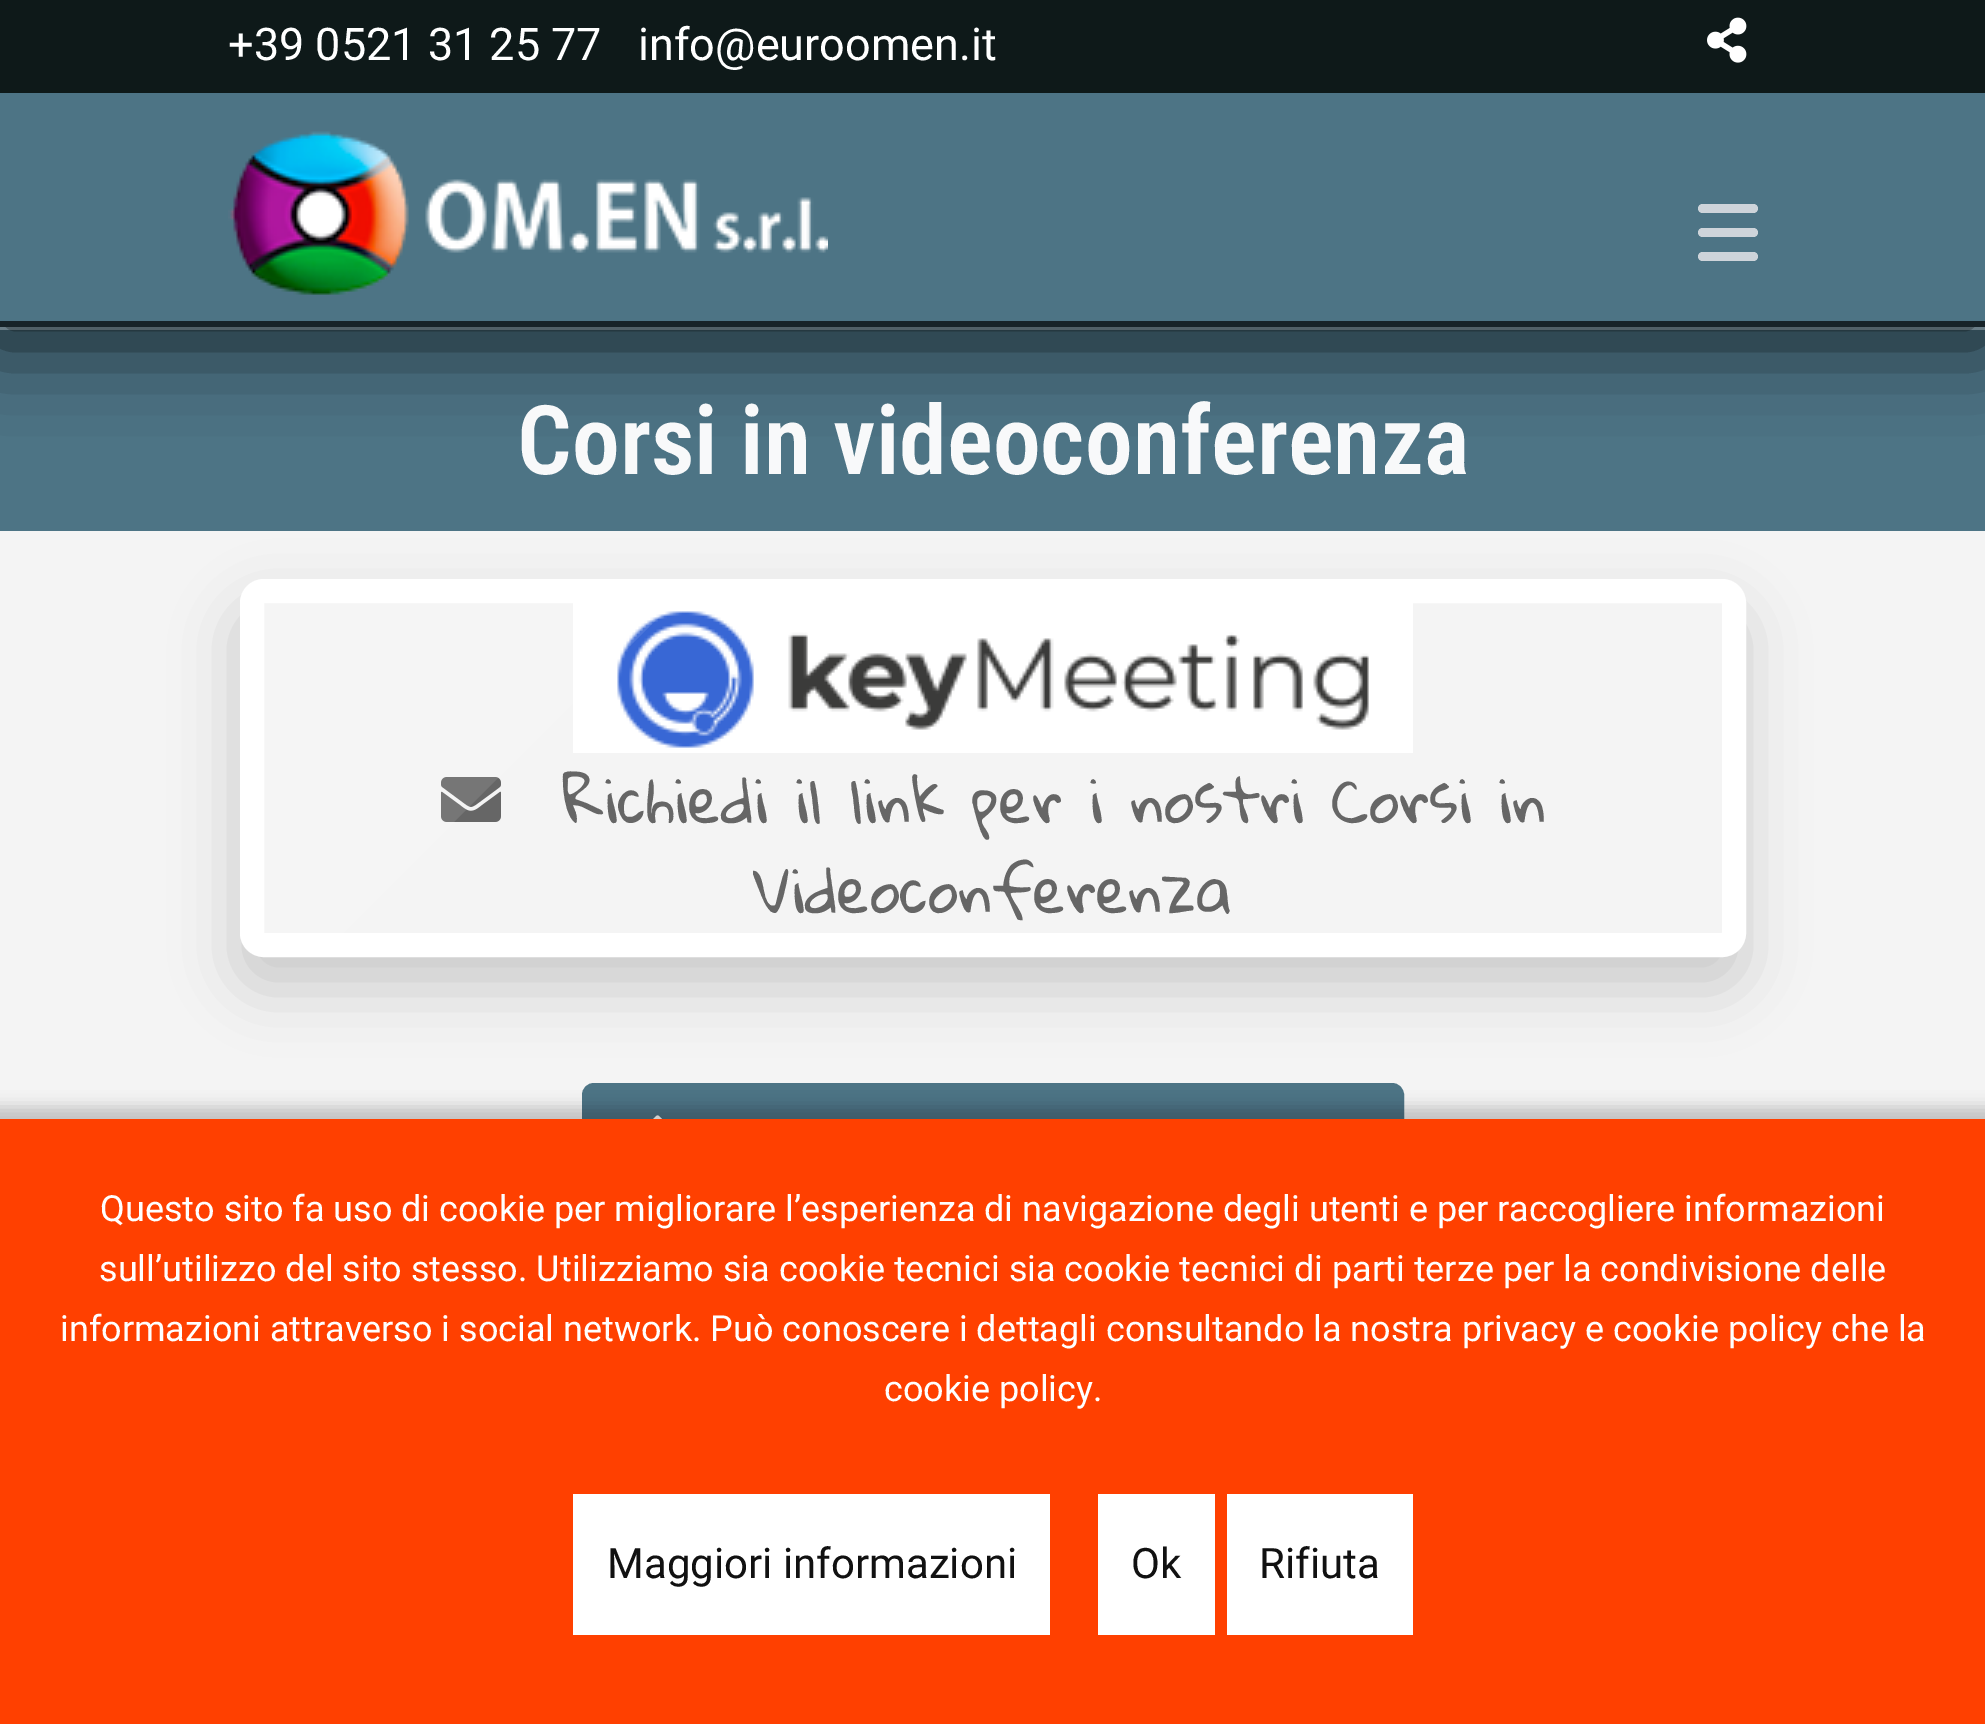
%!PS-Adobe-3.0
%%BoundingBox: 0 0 1985 1724
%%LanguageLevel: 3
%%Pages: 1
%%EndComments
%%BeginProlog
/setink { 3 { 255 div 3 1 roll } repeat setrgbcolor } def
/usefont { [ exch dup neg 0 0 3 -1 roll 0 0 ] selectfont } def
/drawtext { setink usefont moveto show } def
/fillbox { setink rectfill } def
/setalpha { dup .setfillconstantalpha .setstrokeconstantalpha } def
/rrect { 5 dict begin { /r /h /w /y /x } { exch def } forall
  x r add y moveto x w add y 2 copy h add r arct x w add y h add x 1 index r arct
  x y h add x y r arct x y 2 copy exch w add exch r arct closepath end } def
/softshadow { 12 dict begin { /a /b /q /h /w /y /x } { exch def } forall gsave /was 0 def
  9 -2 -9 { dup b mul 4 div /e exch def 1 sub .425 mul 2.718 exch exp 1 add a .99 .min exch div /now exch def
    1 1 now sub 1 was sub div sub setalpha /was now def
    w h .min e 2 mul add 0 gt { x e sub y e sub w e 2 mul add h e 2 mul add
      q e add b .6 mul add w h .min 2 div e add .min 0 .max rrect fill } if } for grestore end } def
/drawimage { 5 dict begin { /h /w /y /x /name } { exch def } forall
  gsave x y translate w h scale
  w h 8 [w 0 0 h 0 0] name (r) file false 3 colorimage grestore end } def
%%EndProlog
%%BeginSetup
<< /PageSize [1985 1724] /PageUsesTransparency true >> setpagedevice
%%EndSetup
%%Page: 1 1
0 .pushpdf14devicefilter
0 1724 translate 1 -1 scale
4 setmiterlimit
0 0 1985 1724 77 116 133 fillbox
0 327 1985 3 170 202 216 fillbox
0 0 0 setink
-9 96 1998 246 0 42 0.75 softshadow
0 93 1985 228 77 116 133 fillbox
0 321 1985 6 23 35 40 fillbox
(assets/img1.rgb) 228 131 600 164 drawimage
206 212 218 setink
1698 228 60 9 4.5 rrect fill
1698 204 60 9 4.5 rrect fill
1698 252 60 9 4.5 rrect fill
0 0 1985 93 14 25 25 fillbox
(+39 0521 31 25 77) 228 60 /Roboto-Regular 45 255 255 255 drawtext
(info@euroomen.it) 638 60 /Roboto-Regular 45 255 255 255 drawtext
(assets/img2.rgb) 1707 17 40 46 drawimage
(Corsi in videoconferenza) 517 474 /RobotoCondensed-SemiBold 96 248 249 250 drawtext
0 531 1985 588 244 244 244 fillbox
gsave
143 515 moveto 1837 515 lineto 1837 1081 lineto 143 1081 lineto closepath 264 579 moveto 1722 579 lineto 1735.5 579 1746 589.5 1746 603 curveto 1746 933 lineto 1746 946.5 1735.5 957 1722 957 curveto 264 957 lineto 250.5 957 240 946.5 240 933 curveto 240 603 lineto 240 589.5 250.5 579 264 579 curveto closepath eoclip newpath
204 204 204 setink
234 606 1512 384 27 30 1 softshadow
grestore
255 255 255 setink
24 setlinewidth
252 591 1482 354 12 rrect stroke
573 603 840 150 255 255 255 fillbox
(assets/img3.rgb) 617 611 752 137 drawimage
(assets/img4.rgb) 441 777 60 45 drawimage
gsave
264 603 1458 330 rectclip
0.1 setalpha
-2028 604 moveto 672 604 lineto -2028 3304 lineto -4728 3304 lineto closepath fill
grestore
(Richiedi il link per i nostri Corsi in) 563 823 /GloriaHallelujah-Regular 60 102 102 102 drawtext
(Videoconferenza) 753 913 /GloriaHallelujah-Regular 60 102 102 102 drawtext
77 116 133 setink
583.5 1084.5 819 105 10.5 rrect gsave fill grestore
3 setlinewidth
stroke
(assets/img5.rgb) 653 1115 9 4 drawimage
0 0 0 setink
-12 1107 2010 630 0 7.5 0.21 softshadow
0 1119 1985 605 255 64 0 fillbox
(Questo sito fa uso di cookie per migliorare l’esperienza di navigazione degli utenti e per raccogliere informazioni) 100 1221 /Roboto-Regular 36 255 255 255 drawtext
(sull’utilizzo del sito stesso. Utilizziamo sia cookie tecnici sia cookie tecnici di parti terze per la condivisione delle) 99 1281 /Roboto-Regular 36 255 255 255 drawtext
(informazioni attraverso i social network. Può conoscere i dettagli consultando la nostra privacy e cookie policy che la) 60 1341 /Roboto-Regular 36 255 255 255 drawtext
(cookie policy.) 884 1401 /Roboto-Regular 36 255 255 255 drawtext
573 1494 477 141 255 255 255 fillbox
(Maggiori informazioni) 607 1578 /Roboto-Regular 42 17 17 17 drawtext
1098 1494 117 141 255 255 255 fillbox
(Ok) 1131 1578 /Roboto-Regular 42 17 17 17 drawtext
1227 1494 186 141 255 255 255 fillbox
(Rifiuta) 1259 1578 /Roboto-Regular 42 17 17 17 drawtext
.poppdf14devicefilter showpage
%%EOF
